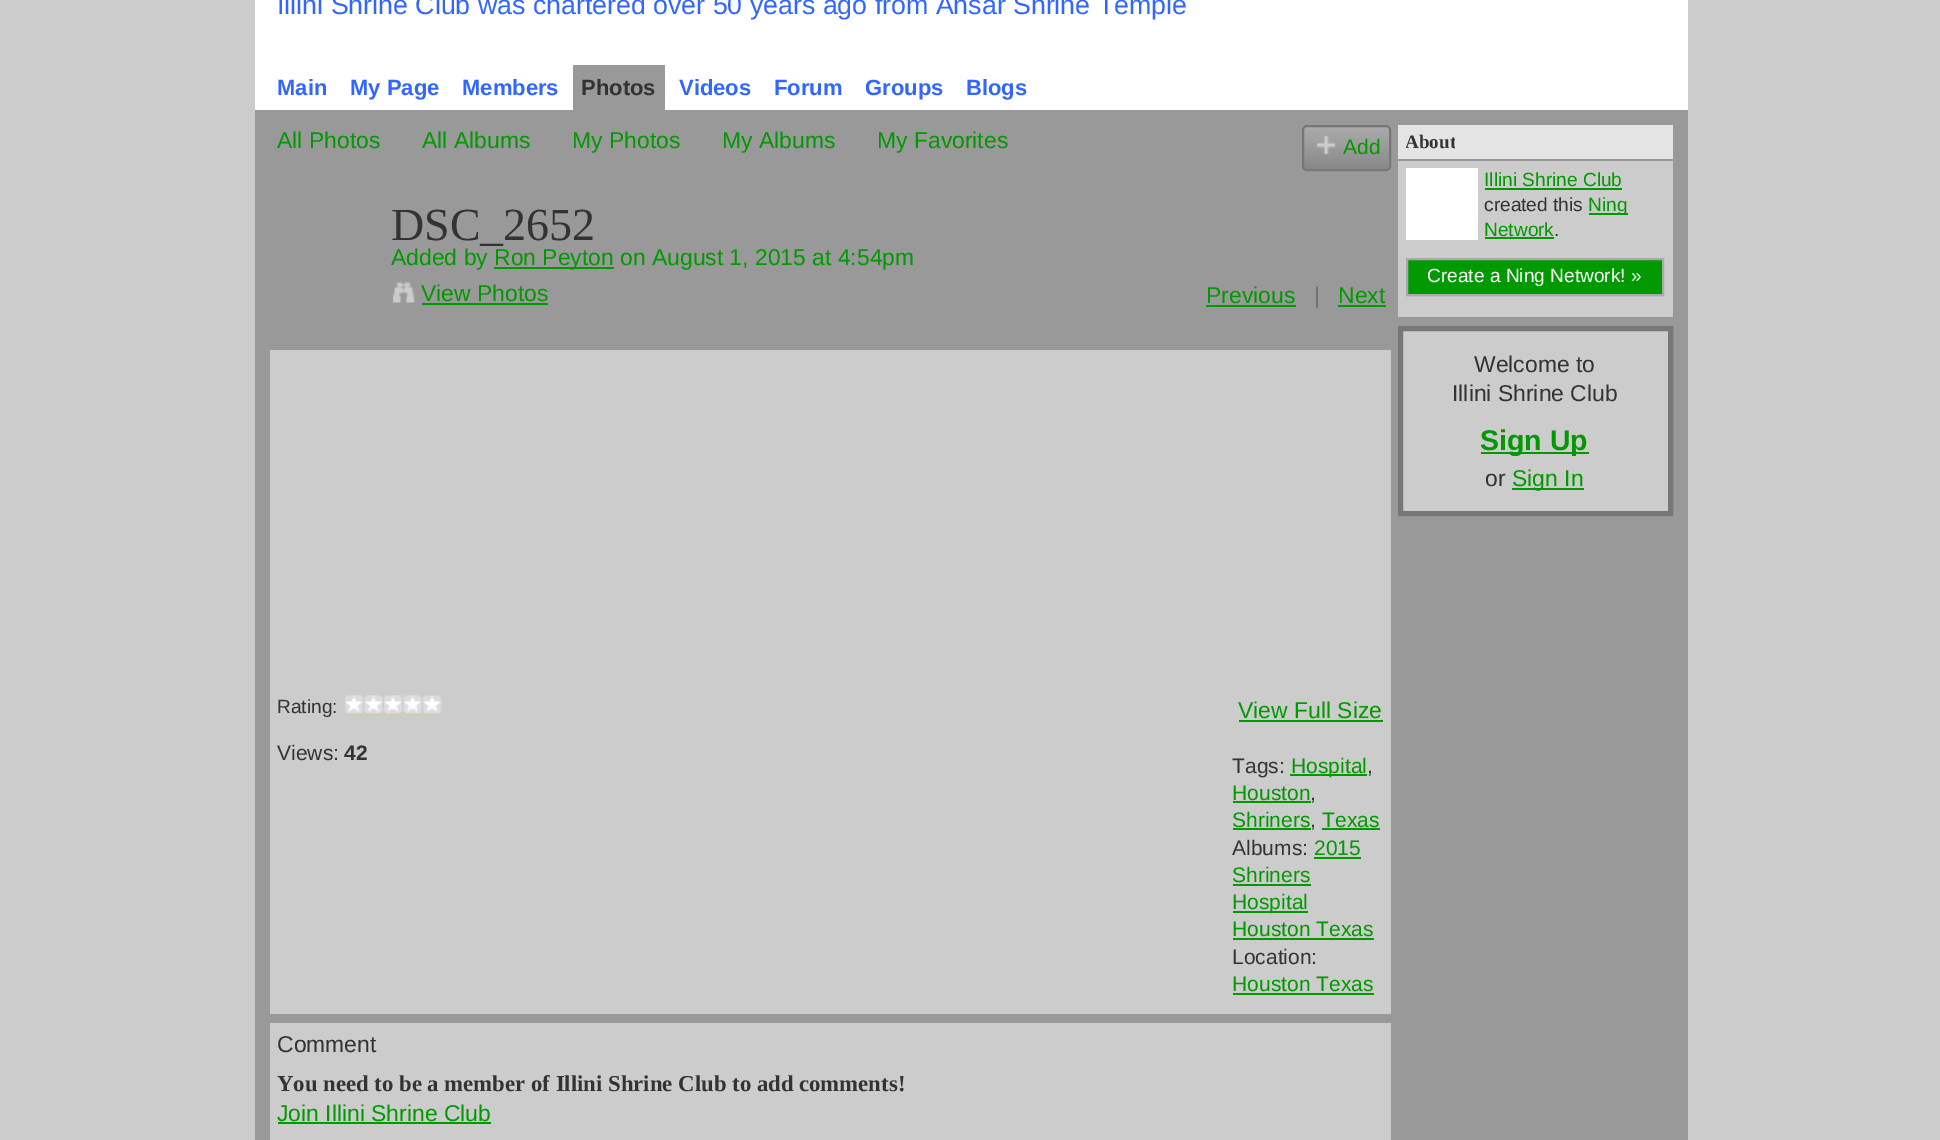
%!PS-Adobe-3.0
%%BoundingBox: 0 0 1940 1140
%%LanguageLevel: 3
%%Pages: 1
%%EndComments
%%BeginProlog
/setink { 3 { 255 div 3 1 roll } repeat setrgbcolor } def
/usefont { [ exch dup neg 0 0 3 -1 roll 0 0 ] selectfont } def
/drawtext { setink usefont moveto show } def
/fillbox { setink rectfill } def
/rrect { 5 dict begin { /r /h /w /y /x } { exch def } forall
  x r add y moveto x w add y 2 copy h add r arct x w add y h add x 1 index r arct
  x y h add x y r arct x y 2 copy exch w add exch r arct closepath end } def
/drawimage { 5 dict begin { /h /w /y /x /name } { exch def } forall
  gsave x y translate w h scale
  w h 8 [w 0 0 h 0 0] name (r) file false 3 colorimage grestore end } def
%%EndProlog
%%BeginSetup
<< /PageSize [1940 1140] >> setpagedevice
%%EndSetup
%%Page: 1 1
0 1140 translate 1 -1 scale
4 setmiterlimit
0 0 1940 1140 204 204 204 fillbox
255 0 1433 110 255 255 255 fillbox
(Illini Shrine Club was chartered over 50 years ago from Ansar Shrine Temple) 277 14 /LiberationSans-Regular 26.75 51 102 255 drawtext
(Main) 277 95 /LiberationSans-Bold 22 51 102 255 drawtext
(My Page) 350 95 /LiberationSans-Bold 22 51 102 255 drawtext
(Members) 462 95 /LiberationSans-Bold 22 51 102 255 drawtext
573 65 92 45 153 153 153 fillbox
(Photos) 581 95 /LiberationSans-Bold 22 51 51 51 drawtext
(Videos) 679 95 /LiberationSans-Bold 22 51 102 255 drawtext
(Forum) 774 95 /LiberationSans-Bold 22 51 102 255 drawtext
(Groups) 865 95 /LiberationSans-Bold 22 51 102 255 drawtext
(Blogs) 966 95 /LiberationSans-Bold 22 51 102 255 drawtext
255 110 1433 1030 153 153 153 fillbox
(All Photos) 277 148 /LiberationSans-Regular 22.9 0 153 0 drawtext
(All Albums) 422 148 /LiberationSans-Regular 22.9 0 153 0 drawtext
(My Photos) 572 148 /LiberationSans-Regular 22.9 0 153 0 drawtext
(My Albums) 722 148 /LiberationSans-Regular 22.9 0 153 0 drawtext
(My Favorites) 877 148 /LiberationSans-Regular 22.9 0 153 0 drawtext
(assets/img1.rgb) 1302 125 88 46 drawimage
119 119 119 setink
2 setlinewidth
1303 126 87 44 4 rrect stroke
(assets/img2.rgb) 1316 135 20 20 drawimage
(Add) 1343 154 /LiberationSans-Regular 21 0 153 0 drawtext
(DSC_2652) 391 240 /LiberationSerif-Regular 46 51 51 51 drawtext
(Added by) 391 265 /LiberationSans-Regular 22.9 0 153 0 drawtext
494 267 120 2 0 153 0 fillbox
(Ron Peyton on August 1, 2015 at 4:54pm) 494 265 /LiberationSans-Regular 22.9 0 153 0 drawtext
(assets/img3.rgb) 392 281 23 22 drawimage
(View Photos) 421 301 /LiberationSans-Regular 22.9 0 153 0 drawtext
422 303 126 2 0 153 0 fillbox
(Previous) 1206 303 /LiberationSans-Regular 22.9 0 153 0 drawtext
1206 305 90 2 0 153 0 fillbox
(|) 1314 303 /LiberationSans-Regular 22.9 112 112 112 drawtext
(Next) 1338 303 /LiberationSans-Regular 22.9 0 153 0 drawtext
1338 305 48 2 0 153 0 fillbox
270 350 1121 664 204 204 204 fillbox
(Rating:) 277 713 /LiberationSans-Regular 19.1 51 51 51 drawtext
(assets/img4.rgb) 345 695 98 20 drawimage
(Views:) 277 760 /LiberationSans-Regular 21 51 51 51 drawtext
(42) 344 760 /LiberationSans-Bold 21 51 51 51 drawtext
(View Full Size) 1238 718 /LiberationSans-Regular 22.9 0 153 0 drawtext
1239 720 144 2 0 153 0 fillbox
(Tags:) 1232 773 /LiberationSans-Regular 21 51 51 51 drawtext
1290 774 77 2 0 153 0 fillbox
(Hospital) 1291 773 /LiberationSans-Regular 21 0 153 0 drawtext
(,) 1367 773 /LiberationSans-Regular 21 51 51 51 drawtext
(Houston) 1232 800 /LiberationSans-Regular 21 0 153 0 drawtext
(,) 1310 800 /LiberationSans-Regular 21 51 51 51 drawtext
1233 801 78 2 0 153 0 fillbox
(Shriners) 1232 827 /LiberationSans-Regular 21 0 153 0 drawtext
(,) 1310 827 /LiberationSans-Regular 21 51 51 51 drawtext
1233 828 78 2 0 153 0 fillbox
1322 828 58 2 0 153 0 fillbox
(Texas) 1322 827 /LiberationSans-Regular 21 0 153 0 drawtext
(Albums:) 1232 855 /LiberationSans-Regular 21 51 51 51 drawtext
(2015) 1314 855 /LiberationSans-Regular 21 0 153 0 drawtext
1314 857 47 2 0 153 0 fillbox
(Shriners) 1232 882 /LiberationSans-Regular 21 0 153 0 drawtext
1233 884 78 2 0 153 0 fillbox
1233 911 75 2 0 153 0 fillbox
(Hospital) 1232 909 /LiberationSans-Regular 21 0 153 0 drawtext
(Houston Texas) 1232 936 /LiberationSans-Regular 21 0 153 0 drawtext
1233 938 141 2 0 153 0 fillbox
(Location:) 1232 964 /LiberationSans-Regular 21 51 51 51 drawtext
(Houston Texas) 1232 991 /LiberationSans-Regular 21 0 153 0 drawtext
1233 993 141 2 0 153 0 fillbox
270 1023 1121 117 204 204 204 fillbox
(Comment) 277 1052 /LiberationSans-Regular 22.9 51 51 51 drawtext
(You need to be a member of Illini Shrine Club to add comments!) 277 1091 /LiberationSerif-Bold 22.75 51 51 51 drawtext
(Join Illini Shrine Club) 277 1121 /LiberationSans-Regular 22.9 0 153 0 drawtext
278 1122 213 2 0 153 0 fillbox
1398 125 275 34 228 228 228 fillbox
gsave
1406 129 49 26 rectclip
(About) 1405 148 /LiberationSerif-Bold 19.1 51 51 51 drawtext
grestore
1398 161 275 156 204 204 204 fillbox
1406 168 72 72 255 255 255 fillbox
(Illini Shrine Club) 1484 186 /LiberationSans-Regular 19.1 0 153 0 drawtext
1485 188 137 2 0 153 0 fillbox
(created this) 1484 211 /LiberationSans-Regular 19.1 51 51 51 drawtext
1589 213 39 2 0 153 0 fillbox
(Ning) 1588 211 /LiberationSans-Regular 19.1 0 153 0 drawtext
(Network) 1484 236 /LiberationSans-Regular 19.1 0 153 0 drawtext
1485 237 69 2 0 153 0 fillbox
(.) 1554 236 /LiberationSans-Regular 19.1 51 51 51 drawtext
0 153 0 setink
1407 259 moveto 1663 259 lineto 1663 295 lineto 1407 295 lineto closepath gsave fill grestore
170 170 170 setink
stroke
(Create a Ning Network! ») 1427 282 /LiberationSans-Regular 19.1 255 255 255 drawtext
204 204 204 setink
1400.5 328.5 moveto 1670.5 328.5 lineto 1670.5 513.5 lineto 1400.5 513.5 lineto closepath gsave fill grestore
119 119 119 setink
5 setlinewidth
stroke
(Welcome to) 1474 372 /LiberationSans-Regular 22.9 51 51 51 drawtext
(Illini Shrine Club) 1452 401 /LiberationSans-Regular 22.9 51 51 51 drawtext
1481 452 108 2 0 153 0 fillbox
(Sign Up) 1480 450 /LiberationSans-Bold 28.5 0 153 0 drawtext
(or) 1485 486 /LiberationSans-Regular 22.9 51 51 51 drawtext
1512 488 72 2 0 153 0 fillbox
(Sign In) 1512 486 /LiberationSans-Regular 22.9 0 153 0 drawtext
showpage
%%EOF
